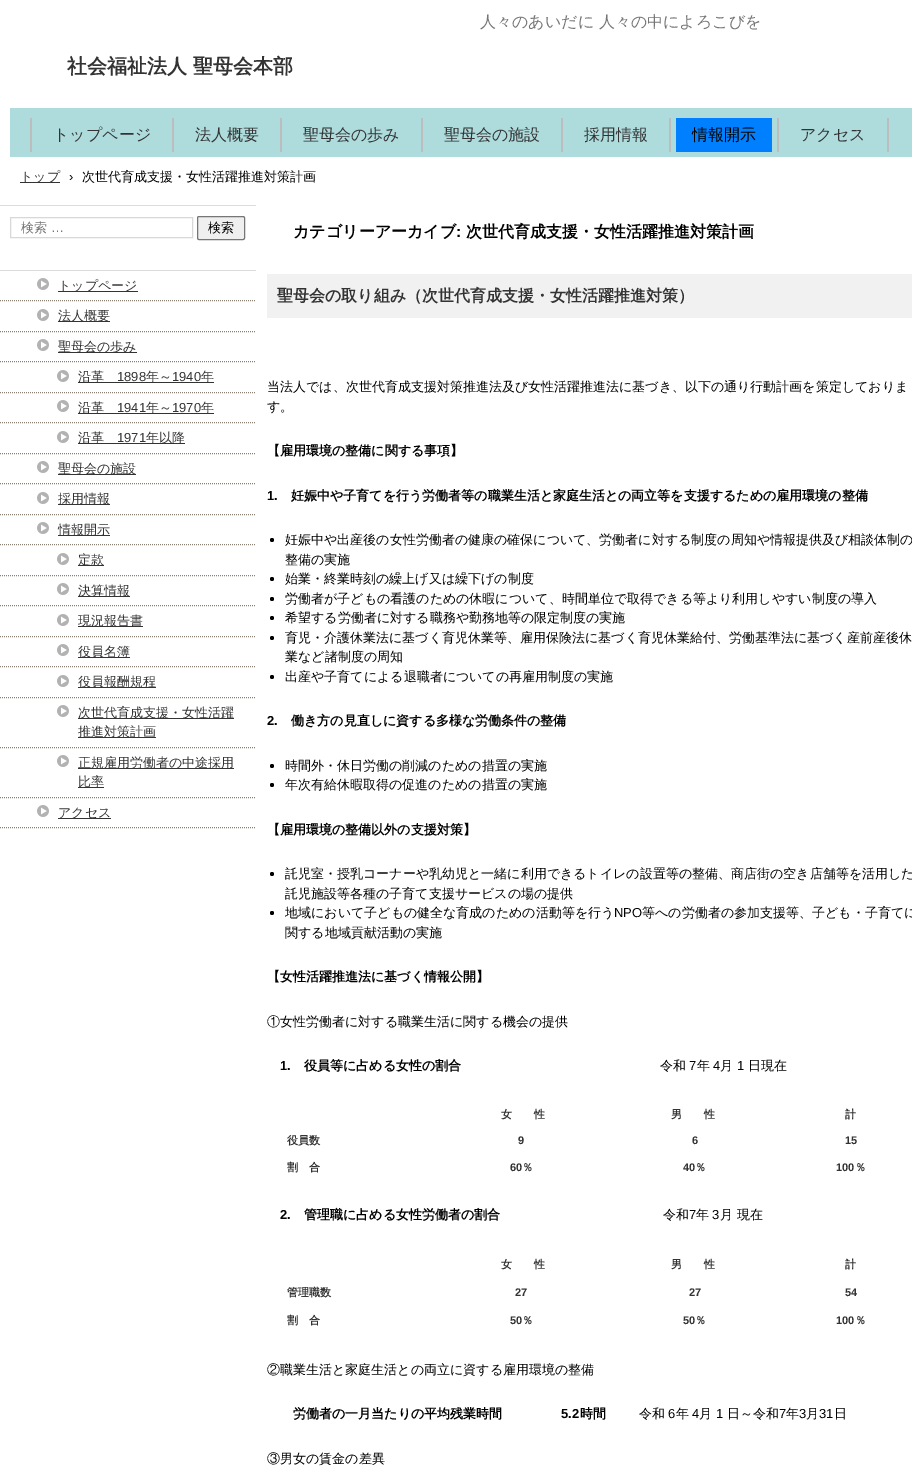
%!PS-Adobe-3.0
%%BoundingBox: 0 0 912 1476
%%LanguageLevel: 3
%%Pages: 1
%%EndComments
%%BeginProlog
/setink { 3 { 255 div 3 1 roll } repeat setrgbcolor } def
/usefont { [ exch dup neg 0 0 3 -1 roll 0 0 ] selectfont } def
/drawtext { setink usefont moveto show } def
/fillbox { setink rectfill } def
/disc { newpath 0 360 arc closepath } def
/rrect { 5 dict begin { /r /h /w /y /x } { exch def } forall
  x r add y moveto x w add y 2 copy h add r arct x w add y h add x 1 index r arct
  x y h add x y r arct x y 2 copy exch w add exch r arct closepath end } def
/drawimage { 5 dict begin { /h /w /y /x /name } { exch def } forall
  gsave x y translate w h scale
  w h 8 [w 0 0 h 0 0] name (r) file false 3 colorimage grestore end } def
%%EndProlog
%%BeginSetup
<< /PageSize [912 1476] >> setpagedevice
%%EndSetup
%%Page: 1 1
0 1476 translate 1 -1 scale
4 setmiterlimit
0 0 912 1476 255 255 255 fillbox
(人々のあいだに 人々の中によろこびを) 480 27 /WenQuanYiZenHei-Medium 16 117 117 117 drawtext
(社会福祉法人 聖母会本部) 67 73 /WenQuanYiZenHei-Bold 20 51 51 51 drawtext
10 108 902 49 174 220 221 fillbox
172 118 2 34 189 189 189 fillbox
30 118 2 34 189 189 189 fillbox
(トップページ) 53 140 /WenQuanYiZenHei-Medium 16 51 51 51 drawtext
280 118 2 34 189 189 189 fillbox
(法人概要) 195 140 /WenQuanYiZenHei-Medium 16 51 51 51 drawtext
421 118 2 34 189 189 189 fillbox
(聖母会の歩み) 303 140 /WenQuanYiZenHei-Medium 16 51 51 51 drawtext
561 118 2 34 189 189 189 fillbox
(聖母会の施設) 444 140 /WenQuanYiZenHei-Medium 16 51 51 51 drawtext
669 118 2 34 189 189 189 fillbox
(採用情報) 584 140 /WenQuanYiZenHei-Medium 16 51 51 51 drawtext
777 118 2 34 189 189 189 fillbox
676 118 96 34 0 128 255 fillbox
(情報開示) 692 140 /WenQuanYiZenHei-Medium 16 0 0 0 drawtext
887 118 2 34 189 189 189 fillbox
(アクセス) 800 140 /WenQuanYiZenHei-Medium 16 51 51 51 drawtext
20 182 40 1 51 51 51 fillbox
(トップ) 20 181 /WenQuanYiZenHei-Medium 13 51 51 51 drawtext
(›) 69 181 /LiberationSans-Regular 13 0 0 0 drawtext
(次世代育成支援・女性活躍推進対策計画) 82 181 /WenQuanYiZenHei-Medium 13 0 0 0 drawtext
0 205 256 1 220 220 220 fillbox
216 216 216 setink
10.5 217.5 182 20 rectstroke
(検索) 21 232 /WenQuanYiZenHei-Medium 13 117 117 117 drawtext
(…) 51 232 /LiberationSans-Regular 13 117 117 117 drawtext
239 239 239 setink
197.5 216.5 47 23 1.5 rrect gsave fill grestore
118 118 118 setink
stroke
(検索) 208 232 /WenQuanYiZenHei-Medium 13 0 0 0 drawtext
0 270 256 1 220 220 220 fillbox
(assets/img1.rgb) 37 278 12 12 drawimage
58 291 80 1 51 51 51 fillbox
(トップページ) 58 290 /WenQuanYiZenHei-Medium 13 51 51 51 drawtext
138 128 118 setink
[1 1] 0 setdash
0 300.5 moveto 256 300.5 lineto stroke
(assets/img1.rgb) 37 309 12 12 drawimage
58 321 52 1 51 51 51 fillbox
(法人概要) 58 320 /WenQuanYiZenHei-Medium 13 51 51 51 drawtext
138 128 118 setink
0 331.5 moveto 256 331.5 lineto stroke
(assets/img1.rgb) 37 339 12 12 drawimage
58 352 79 1 51 51 51 fillbox
(聖母会の歩み) 58 351 /WenQuanYiZenHei-Medium 13 51 51 51 drawtext
138 128 118 setink
0 361.5 moveto 256 361.5 lineto stroke
(assets/img1.rgb) 57 370 12 12 drawimage
78 382 136 1 51 51 51 fillbox
(沿革) 78 381 /WenQuanYiZenHei-Medium 13 51 51 51 drawtext
(1898) 117 381 /LiberationSans-Regular 13 51 51 51 drawtext
(年～) 146 381 /WenQuanYiZenHei-Medium 13 51 51 51 drawtext
(1940) 172 381 /LiberationSans-Regular 13 51 51 51 drawtext
(年) 201 381 /WenQuanYiZenHei-Medium 13 51 51 51 drawtext
138 128 118 setink
0 392.5 moveto 256 392.5 lineto stroke
(assets/img1.rgb) 57 400 12 12 drawimage
78 413 136 1 51 51 51 fillbox
(沿革) 78 412 /WenQuanYiZenHei-Medium 13 51 51 51 drawtext
(1941) 117 412 /LiberationSans-Regular 13 51 51 51 drawtext
(年～) 146 412 /WenQuanYiZenHei-Medium 13 51 51 51 drawtext
(1970) 172 412 /LiberationSans-Regular 13 51 51 51 drawtext
(年) 201 412 /WenQuanYiZenHei-Medium 13 51 51 51 drawtext
138 128 118 setink
0 422.5 moveto 256 422.5 lineto stroke
(assets/img1.rgb) 57 431 12 12 drawimage
78 443 107 1 51 51 51 fillbox
(沿革) 78 442 /WenQuanYiZenHei-Medium 13 51 51 51 drawtext
(1971) 117 442 /LiberationSans-Regular 13 51 51 51 drawtext
(年以降) 146 442 /WenQuanYiZenHei-Medium 13 51 51 51 drawtext
138 128 118 setink
0 453.5 moveto 256 453.5 lineto stroke
(assets/img1.rgb) 37 461 12 12 drawimage
58 474 78 1 51 51 51 fillbox
(聖母会の施設) 58 473 /WenQuanYiZenHei-Medium 13 51 51 51 drawtext
138 128 118 setink
0 483.5 moveto 256 483.5 lineto stroke
(assets/img1.rgb) 37 492 12 12 drawimage
58 504 52 1 51 51 51 fillbox
(採用情報) 58 503 /WenQuanYiZenHei-Medium 13 51 51 51 drawtext
138 128 118 setink
0 514.5 moveto 256 514.5 lineto stroke
(assets/img1.rgb) 37 522 12 12 drawimage
58 535 52 1 51 51 51 fillbox
(情報開示) 58 534 /WenQuanYiZenHei-Medium 13 51 51 51 drawtext
138 128 118 setink
0 544.5 moveto 256 544.5 lineto stroke
(assets/img1.rgb) 57 553 12 12 drawimage
78 565 26 1 51 51 51 fillbox
(定款) 78 564 /WenQuanYiZenHei-Medium 13 51 51 51 drawtext
138 128 118 setink
0 575.5 moveto 256 575.5 lineto stroke
(assets/img1.rgb) 57 583 12 12 drawimage
78 596 52 1 51 51 51 fillbox
(決算情報) 78 595 /WenQuanYiZenHei-Medium 13 51 51 51 drawtext
138 128 118 setink
0 605.5 moveto 256 605.5 lineto stroke
(assets/img1.rgb) 57 614 12 12 drawimage
78 626 65 1 51 51 51 fillbox
(現況報告書) 78 625 /WenQuanYiZenHei-Medium 13 51 51 51 drawtext
138 128 118 setink
0 636.5 moveto 256 636.5 lineto stroke
(assets/img1.rgb) 57 644 12 12 drawimage
78 657 52 1 51 51 51 fillbox
(役員名簿) 78 656 /WenQuanYiZenHei-Medium 13 51 51 51 drawtext
138 128 118 setink
0 666.5 moveto 256 666.5 lineto stroke
(assets/img1.rgb) 57 675 12 12 drawimage
78 687 78 1 51 51 51 fillbox
(役員報酬規程) 78 686 /WenQuanYiZenHei-Medium 13 51 51 51 drawtext
138 128 118 setink
0 697.5 moveto 256 697.5 lineto stroke
(assets/img1.rgb) 57 705 12 12 drawimage
78 718 156 1 51 51 51 fillbox
(次世代育成支援・女性活躍) 78 717 /WenQuanYiZenHei-Medium 13 51 51 51 drawtext
78 737 78 1 51 51 51 fillbox
(推進対策計画) 78 736 /WenQuanYiZenHei-Medium 13 51 51 51 drawtext
138 128 118 setink
0 747.5 moveto 256 747.5 lineto stroke
(assets/img1.rgb) 57 755 12 12 drawimage
78 768 156 1 51 51 51 fillbox
(正規雇用労働者の中途採用) 78 767 /WenQuanYiZenHei-Medium 13 51 51 51 drawtext
78 787 26 1 51 51 51 fillbox
(比率) 78 786 /WenQuanYiZenHei-Medium 13 51 51 51 drawtext
138 128 118 setink
0 797.5 moveto 256 797.5 lineto stroke
0 827.5 moveto 256 827.5 lineto stroke
(assets/img1.rgb) 37 805 12 12 drawimage
58 818 53 1 51 51 51 fillbox
(アクセス) 58 817 /WenQuanYiZenHei-Medium 13 51 51 51 drawtext
(カテゴリーアーカイブ) 293 237 /WenQuanYiZenHei-Bold 16 0 0 0 drawtext
(:) 456 237 /LiberationSans-Bold 16 0 0 0 drawtext
(次世代育成支援・女性活躍推進対策計画) 466 237 /WenQuanYiZenHei-Bold 16 0 0 0 drawtext
267 274 645 44 241 241 241 fillbox
(聖母会の取り組み（次世代育成支援・女性活躍推進対策）) 277 301 /WenQuanYiZenHei-Bold 16 51 51 51 drawtext
(当法人では、次世代育成支援対策推進法及び女性活躍推進法に基づき、以下の通り行動計画を策定しておりま) 267 391 /WenQuanYiZenHei-Medium 13 0 0 0 drawtext
(す。) 267 411 /WenQuanYiZenHei-Medium 13 0 0 0 drawtext
(【雇用環境の整備に関する事項】) 267 455 /WenQuanYiZenHei-Bold 13 0 0 0 drawtext
(1.) 267 500 /LiberationSans-Bold 13 0 0 0 drawtext
(妊娠中や子育てを行う労働者等の職業生活と家庭生活との両立等を支援するための雇用環境の整備) 291 500 /WenQuanYiZenHei-Bold 13 0 0 0 drawtext
272 540 2 disc fill
(妊娠中や出産後の女性労働者の健康の確保について、労働者に対する制度の周知や情報提供及び相談体制の) 285 544 /WenQuanYiZenHei-Medium 13 0 0 0 drawtext
(整備の実施) 285 564 /WenQuanYiZenHei-Medium 13 0 0 0 drawtext
272 579 2 disc fill
(始業・終業時刻の繰上げ又は繰下げの制度) 285 583 /WenQuanYiZenHei-Medium 13 0 0 0 drawtext
272 599 2 disc fill
(労働者が子どもの看護のための休暇について、時間単位で取得できる等より利用しやすい制度の導入) 285 603 /WenQuanYiZenHei-Medium 13 0 0 0 drawtext
272 618 2 disc fill
(希望する労働者に対する職務や勤務地等の限定制度の実施) 285 622 /WenQuanYiZenHei-Medium 13 0 0 0 drawtext
272 638 2 disc fill
(育児・介護休業法に基づく育児休業等、雇用保険法に基づく育児休業給付、労働基準法に基づく産前産後休) 285 642 /WenQuanYiZenHei-Medium 13 0 0 0 drawtext
(業など諸制度の周知) 285 661 /WenQuanYiZenHei-Medium 13 0 0 0 drawtext
272 677 2 disc fill
(出産や子育てによる退職者についての再雇用制度の実施) 285 681 /WenQuanYiZenHei-Medium 13 0 0 0 drawtext
(2.) 267 725 /LiberationSans-Bold 13 0 0 0 drawtext
(働き方の見直しに資する多様な労働条件の整備) 291 725 /WenQuanYiZenHei-Bold 13 0 0 0 drawtext
272 766 2 disc fill
(時間外・休日労働の削減のための措置の実施) 285 770 /WenQuanYiZenHei-Medium 13 0 0 0 drawtext
272 785 2 disc fill
(年次有給休暇取得の促進のための措置の実施) 285 789 /WenQuanYiZenHei-Medium 13 0 0 0 drawtext
(【雇用環境の整備以外の支援対策】) 267 834 /WenQuanYiZenHei-Bold 13 0 0 0 drawtext
272 874 2 disc fill
(託児室・授乳コーナーや乳幼児と一緒に利用できるトイレの設置等の整備、商店街の空き店舗等を活用した) 285 878 /WenQuanYiZenHei-Medium 13 0 0 0 drawtext
(託児施設等各種の子育て支援サービスの場の提供) 285 898 /WenQuanYiZenHei-Medium 13 0 0 0 drawtext
272 913 2 disc fill
(地域において子どもの健全な育成のための活動等を行う) 285 917 /WenQuanYiZenHei-Medium 13 0 0 0 drawtext
(NPO) 614 917 /LiberationSans-Regular 13 0 0 0 drawtext
(等への労働者の参加支援等、子ども・子育てに) 642 917 /WenQuanYiZenHei-Medium 13 0 0 0 drawtext
(関する地域貢献活動の実施) 285 937 /WenQuanYiZenHei-Medium 13 0 0 0 drawtext
(【女性活躍推進法に基づく情報公開】) 267 981 /WenQuanYiZenHei-Bold 13 0 0 0 drawtext
(①女性労働者に対する職業生活に関する機会の提供) 267 1026 /WenQuanYiZenHei-Medium 13 0 0 0 drawtext
(1.) 280 1070 /LiberationSans-Bold 13 0 0 0 drawtext
(役員等に占める女性の割合) 304 1070 /WenQuanYiZenHei-Bold 13 0 0 0 drawtext
(令和) 660 1070 /WenQuanYiZenHei-Medium 13 0 0 0 drawtext
(7) 689 1070 /LiberationSans-Regular 13 0 0 0 drawtext
(年) 697 1070 /WenQuanYiZenHei-Medium 13 0 0 0 drawtext
(4) 713 1070 /LiberationSans-Regular 13 0 0 0 drawtext
(月) 720 1070 /WenQuanYiZenHei-Medium 13 0 0 0 drawtext
(1) 737 1070 /LiberationSans-Regular 13 0 0 0 drawtext
(日現在) 748 1070 /WenQuanYiZenHei-Medium 13 0 0 0 drawtext
(女　　性) 501 1118 /WenQuanYiZenHei-Bold 11 51 51 51 drawtext
(男　　性) 671 1118 /WenQuanYiZenHei-Bold 11 51 51 51 drawtext
(計) 845 1118 /WenQuanYiZenHei-Bold 11 51 51 51 drawtext
(役員数) 287 1144 /WenQuanYiZenHei-Bold 11 51 51 51 drawtext
(9) 518 1144 /LiberationSans-Bold 11 51 51 51 drawtext
(6) 692 1144 /LiberationSans-Bold 11 51 51 51 drawtext
(15) 845 1144 /LiberationSans-Bold 11 51 51 51 drawtext
(割　合) 287 1171 /WenQuanYiZenHei-Bold 11 51 51 51 drawtext
(60) 510 1171 /LiberationSans-Bold 11 51 51 51 drawtext
(％) 522 1171 /WenQuanYiZenHei-Bold 11 51 51 51 drawtext
(40) 683 1171 /LiberationSans-Bold 11 51 51 51 drawtext
(％) 695 1171 /WenQuanYiZenHei-Bold 11 51 51 51 drawtext
(100) 836 1171 /LiberationSans-Bold 11 51 51 51 drawtext
(％) 855 1171 /WenQuanYiZenHei-Bold 11 51 51 51 drawtext
(2.) 280 1219 /LiberationSans-Bold 13 0 0 0 drawtext
(管理職に占める女性労働者の割合) 304 1219 /WenQuanYiZenHei-Bold 13 0 0 0 drawtext
(令和) 663 1219 /WenQuanYiZenHei-Medium 13 0 0 0 drawtext
(7) 689 1219 /LiberationSans-Regular 13 0 0 0 drawtext
(年) 696 1219 /WenQuanYiZenHei-Medium 13 0 0 0 drawtext
(3) 712 1219 /LiberationSans-Regular 13 0 0 0 drawtext
(月 現在) 720 1219 /WenQuanYiZenHei-Medium 13 0 0 0 drawtext
(女　　性) 501 1268 /WenQuanYiZenHei-Bold 11 51 51 51 drawtext
(男　　性) 671 1268 /WenQuanYiZenHei-Bold 11 51 51 51 drawtext
(計) 845 1268 /WenQuanYiZenHei-Bold 11 51 51 51 drawtext
(管理職数) 287 1296 /WenQuanYiZenHei-Bold 11 51 51 51 drawtext
(27) 515 1296 /LiberationSans-Bold 11 51 51 51 drawtext
(27) 689 1296 /LiberationSans-Bold 11 51 51 51 drawtext
(54) 845 1296 /LiberationSans-Bold 11 51 51 51 drawtext
(割　合) 287 1324 /WenQuanYiZenHei-Bold 11 51 51 51 drawtext
(50) 510 1324 /LiberationSans-Bold 11 51 51 51 drawtext
(％) 522 1324 /WenQuanYiZenHei-Bold 11 51 51 51 drawtext
(50) 683 1324 /LiberationSans-Bold 11 51 51 51 drawtext
(％) 695 1324 /WenQuanYiZenHei-Bold 11 51 51 51 drawtext
(100) 836 1324 /LiberationSans-Bold 11 51 51 51 drawtext
(％) 855 1324 /WenQuanYiZenHei-Bold 11 51 51 51 drawtext
(②職業生活と家庭生活との両立に資する雇用環境の整備) 267 1374 /WenQuanYiZenHei-Medium 13 0 0 0 drawtext
(労働者の一月当たりの平均残業時間) 293 1418 /WenQuanYiZenHei-Bold 13 0 0 0 drawtext
(5.2) 561 1418 /LiberationSans-Bold 13 0 0 0 drawtext
(時間) 580 1418 /WenQuanYiZenHei-Bold 13 0 0 0 drawtext
(令和) 639 1418 /WenQuanYiZenHei-Medium 13 0 0 0 drawtext
(6) 668 1418 /LiberationSans-Regular 13 0 0 0 drawtext
(年) 676 1418 /WenQuanYiZenHei-Medium 13 0 0 0 drawtext
(4) 692 1418 /LiberationSans-Regular 13 0 0 0 drawtext
(月) 699 1418 /WenQuanYiZenHei-Medium 13 0 0 0 drawtext
(1) 716 1418 /LiberationSans-Regular 13 0 0 0 drawtext
(日～令和) 727 1418 /WenQuanYiZenHei-Medium 13 0 0 0 drawtext
(7) 779 1418 /LiberationSans-Regular 13 0 0 0 drawtext
(年) 786 1418 /WenQuanYiZenHei-Medium 13 0 0 0 drawtext
(3) 799 1418 /LiberationSans-Regular 13 0 0 0 drawtext
(月) 806 1418 /WenQuanYiZenHei-Medium 13 0 0 0 drawtext
(31) 819 1418 /LiberationSans-Regular 13 0 0 0 drawtext
(日) 834 1418 /WenQuanYiZenHei-Medium 13 0 0 0 drawtext
(③男女の賃金の差異) 267 1463 /WenQuanYiZenHei-Medium 13 0 0 0 drawtext
showpage
%%EOF
